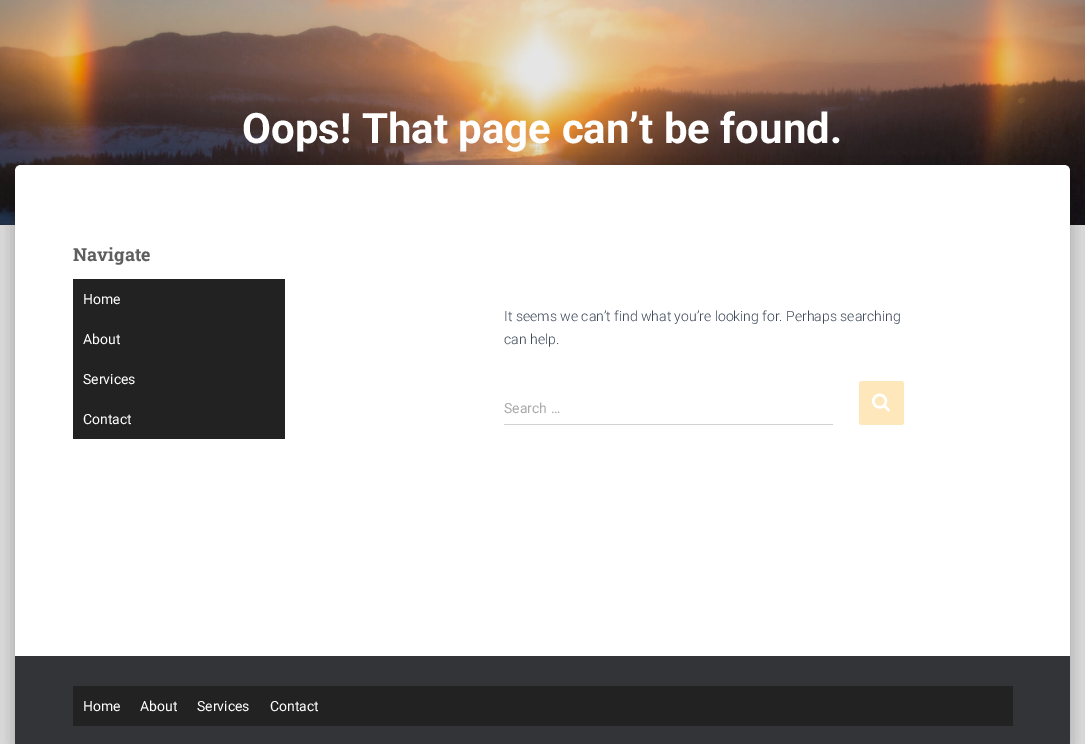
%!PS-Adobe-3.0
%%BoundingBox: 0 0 1085 744
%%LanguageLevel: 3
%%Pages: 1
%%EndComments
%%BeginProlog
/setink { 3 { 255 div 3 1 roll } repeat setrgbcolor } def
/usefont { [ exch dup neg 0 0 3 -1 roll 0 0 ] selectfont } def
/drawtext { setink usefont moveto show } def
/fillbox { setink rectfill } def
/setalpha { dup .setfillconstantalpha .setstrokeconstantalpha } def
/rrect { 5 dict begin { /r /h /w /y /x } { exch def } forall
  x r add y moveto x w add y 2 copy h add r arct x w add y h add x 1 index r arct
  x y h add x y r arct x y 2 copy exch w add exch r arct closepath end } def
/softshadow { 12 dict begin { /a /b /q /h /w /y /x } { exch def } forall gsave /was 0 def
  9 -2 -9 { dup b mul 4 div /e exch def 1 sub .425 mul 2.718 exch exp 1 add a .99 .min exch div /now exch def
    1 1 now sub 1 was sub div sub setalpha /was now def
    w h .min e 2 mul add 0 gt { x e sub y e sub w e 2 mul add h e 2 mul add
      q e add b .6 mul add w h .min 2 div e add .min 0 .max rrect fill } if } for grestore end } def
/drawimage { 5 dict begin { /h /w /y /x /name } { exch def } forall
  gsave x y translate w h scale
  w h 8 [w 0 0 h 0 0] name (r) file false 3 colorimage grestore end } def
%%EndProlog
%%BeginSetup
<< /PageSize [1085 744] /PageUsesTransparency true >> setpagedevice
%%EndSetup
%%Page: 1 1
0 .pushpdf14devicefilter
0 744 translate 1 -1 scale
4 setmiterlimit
0 0 1085 744 229 229 229 fillbox
(assets/img1.rgb) 0 0 1085 225 drawimage
(Oops! That page can’t be found.) 242 143 /Roboto-Bold 42 255 255 255 drawtext
0 0 0 setink
20 178 1045 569 1 5 0.2 softshadow
10 166 1065 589 11 15 0.12 softshadow
13 179 1059 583 8 12 0.14 softshadow
255 255 255 setink
21 165 moveto 1064 165 lineto 1067.5 165 1070 167.5 1070 171 curveto 1070 744 lineto 15 744 lineto 15 171 lineto 15 167.5 17.5 165 21 165 curveto closepath fill
(Navigate) 73 261 /RobotoSlab-Bold 18 94 94 94 drawtext
73 279 212 160 34 34 34 fillbox
(Home) 83 304 /Roboto-Regular 14 255 255 255 drawtext
(About) 83 344 /Roboto-Regular 14 255 255 255 drawtext
(Services) 83 384 /Roboto-Regular 14 255 255 255 drawtext
(Contact) 83 424 /Roboto-Regular 14 255 255 255 drawtext
(It seems we can’t find what you’re looking for. Perhaps searching) 504 321 /Roboto-Light 14 60 72 88 drawtext
(can help.) 504 344 /Roboto-Light 14 60 72 88 drawtext
(Search …) 504 413 /Roboto-Regular 14 170 170 170 drawtext
504 424 329 1 210 210 210 fillbox
253 231 187 setink
859 381 45 44 3 rrect fill
(assets/img2.rgb) 872 393 18 19 drawimage
15 656 1055 88 50 52 55 fillbox
73 686 940 40 34 34 34 fillbox
(Home) 83 711 /Roboto-Regular 14 255 255 255 drawtext
(About) 140 711 /Roboto-Regular 14 255 255 255 drawtext
(Services) 197 711 /Roboto-Regular 14 255 255 255 drawtext
(Contact) 270 711 /Roboto-Regular 14 255 255 255 drawtext
.poppdf14devicefilter showpage
%%EOF
